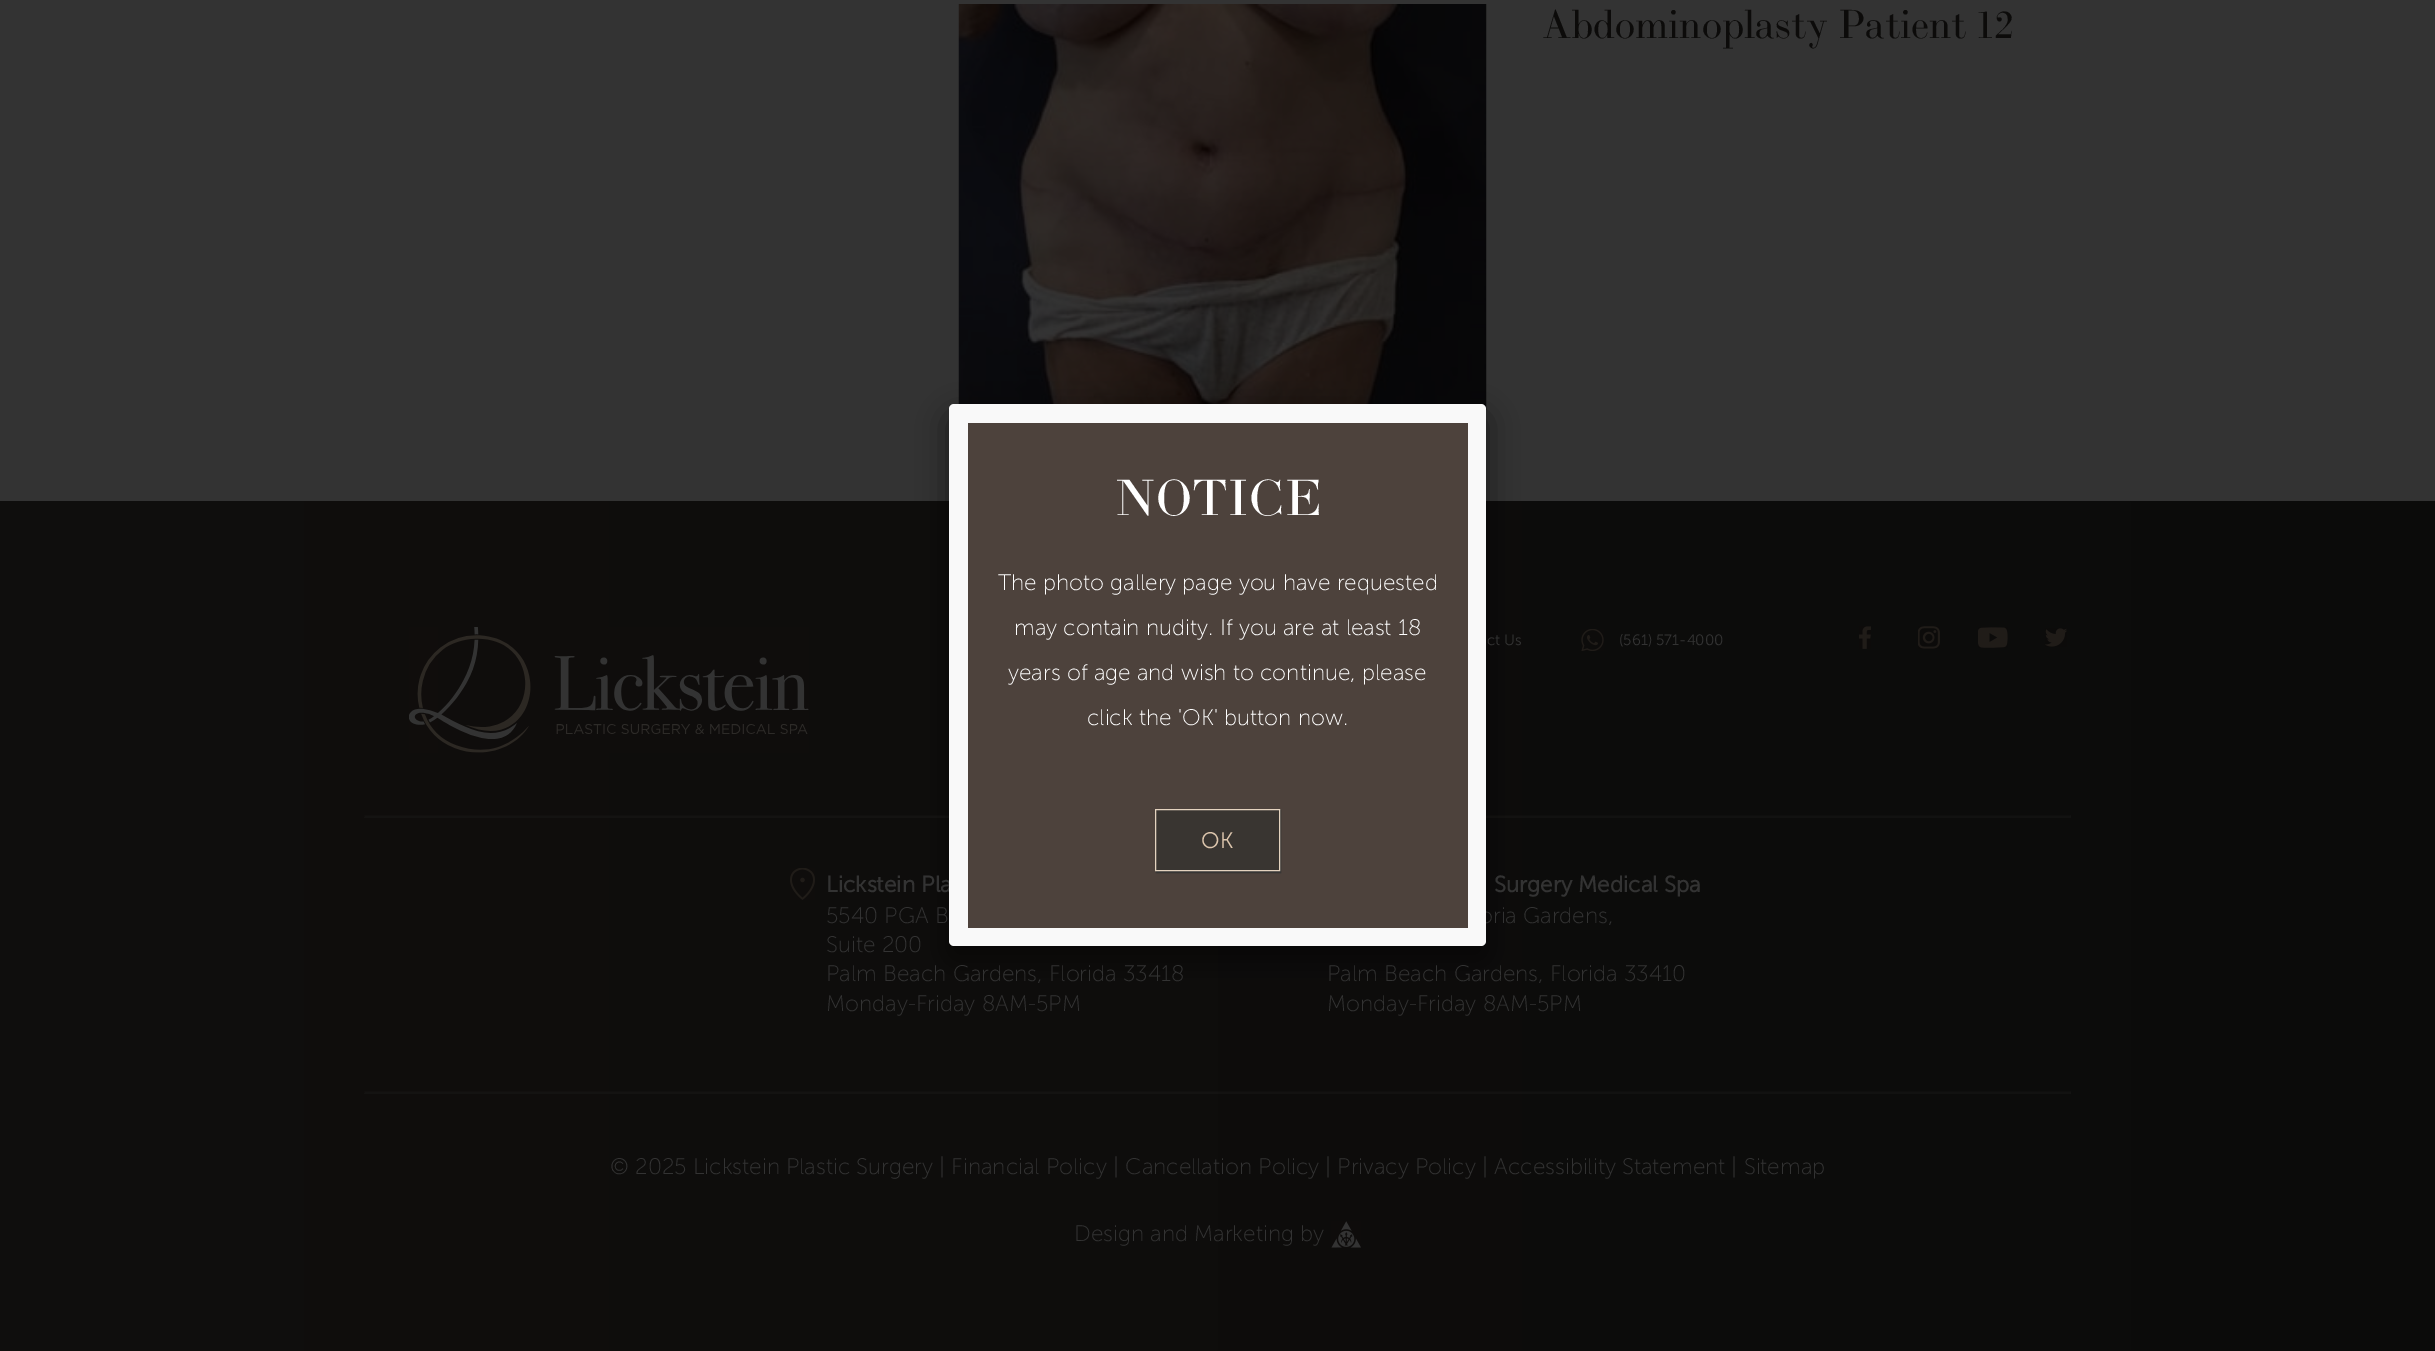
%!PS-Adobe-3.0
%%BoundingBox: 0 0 2435 1351
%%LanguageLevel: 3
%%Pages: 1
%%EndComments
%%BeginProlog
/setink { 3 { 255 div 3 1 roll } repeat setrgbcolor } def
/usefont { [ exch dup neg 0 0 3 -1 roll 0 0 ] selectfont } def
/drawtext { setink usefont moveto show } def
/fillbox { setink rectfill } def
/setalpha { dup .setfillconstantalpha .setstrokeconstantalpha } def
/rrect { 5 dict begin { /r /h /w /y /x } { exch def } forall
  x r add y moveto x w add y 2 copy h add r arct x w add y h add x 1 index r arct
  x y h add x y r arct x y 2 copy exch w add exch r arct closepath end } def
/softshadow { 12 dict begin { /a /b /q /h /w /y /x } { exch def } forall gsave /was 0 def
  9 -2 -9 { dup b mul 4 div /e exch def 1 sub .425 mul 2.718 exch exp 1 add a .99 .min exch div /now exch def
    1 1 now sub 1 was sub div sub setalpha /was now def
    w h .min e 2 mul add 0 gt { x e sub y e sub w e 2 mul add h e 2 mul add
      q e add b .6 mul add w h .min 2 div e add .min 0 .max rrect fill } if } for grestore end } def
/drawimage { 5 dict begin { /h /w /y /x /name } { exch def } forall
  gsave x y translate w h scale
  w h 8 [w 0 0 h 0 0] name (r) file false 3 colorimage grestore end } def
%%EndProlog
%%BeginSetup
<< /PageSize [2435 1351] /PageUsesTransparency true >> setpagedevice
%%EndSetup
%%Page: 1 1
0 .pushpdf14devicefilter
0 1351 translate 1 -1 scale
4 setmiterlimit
0 0 2435 1351 51 51 51 fillbox
(assets/img1.rgb) 958 4 529 407 drawimage
(Abdominoplasty Patient 12) 1543 38 /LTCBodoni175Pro-Regular 40 12 11 10 drawtext
gsave 0 501 moveto 2435 501 lineto 2435 1351 lineto 0 1351 lineto closepath clip newpath
<< /ShadingType 2 /ColorSpace /DeviceRGB /Coords [0 926 2435 926] /Extend [true true] /Function << /FunctionType 2 /Domain [0 1] /C0 [0.063 0.055 0.051] /C1 [0.043 0.043 0.039] /N 1 >> >> shfill grestore
0.15 setalpha
34 34 34 setink
364 815 moveto 2071 815 lineto 2070 816 lineto 365 816 lineto closepath fill
51 51 51 setink
2071 815 moveto 2071 817.5 lineto 2070 816 lineto closepath fill
2071 818 moveto 364 818 lineto 365 816 lineto 2070 816 lineto closepath fill
1 setalpha
0 0 0 setink
949 416 537 543 5 15.5 0.5 softshadow
(Lickstein Pla) 826 892 /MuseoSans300-Bold 22.5 51 51 51 drawtext
(oria Gardens,) 1479 923 /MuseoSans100-Light 22.5 51 51 51 drawtext
249 249 249 setink
949 404 537 542 5 rrect fill
968 423 500 505 77 66 60 fillbox
(NOTICE) 1114 515 /LTCBodoni175Pro-Regular 50 255 255 255 drawtext
(The photo gallery page you have requested) 998 590 /MuseoSans100-Light 22.5 255 255 255 drawtext
(may contain nudity. If you are at least 18) 1014 635 /MuseoSans100-Light 22.5 255 255 255 drawtext
(years of age and wish to continue, please) 1008 680 /MuseoSans100-Light 22.5 255 255 255 drawtext
(click the 'OK' button now.) 1087 725 /MuseoSans100-Light 22.5 255 255 255 drawtext
51 51 51 setink
1156 810 125 63 0 0.5 1 softshadow
57 53 49 setink
1155.5 809.5 moveto 1279.5 809.5 lineto 1279.5 870.5 lineto 1155.5 870.5 lineto closepath gsave fill grestore
228 211 191 setink
stroke
(OK) 1201 848 /MuseoSans300-Light 22.5 221 198 173 drawtext
(assets/img2.rgb) 409 627 400 126 drawimage
(ct Us) 1487 645 /MuseoSans300-Light 15 51 51 51 drawtext
(assets/img3.rgb) 1581 629 23 22 drawimage
(\(561\) 571-4000) 1619 645 /MuseoSans300-Light 15 51 51 51 drawtext
(assets/img4.rgb) 1859 626 12 23 drawimage
(assets/img5.rgb) 1918 626 22 23 drawimage
(assets/img6.rgb) 1978 627 30 21 drawimage
(assets/img7.rgb) 2045 628 22 19 drawimage
(assets/img8.rgb) 790 868 25 32 drawimage
(5540 PGA B) 826 923 /MuseoSans100-Light 22.5 51 51 51 drawtext
(Suite 200) 826 952 /MuseoSans100-Light 22.5 51 51 51 drawtext
(Palm Beach Gardens, Florida 33418) 826 981 /MuseoSans100-Light 22.5 51 51 51 drawtext
(Monday-Friday 8AM-5PM) 826 1011 /MuseoSans100-Light 22.5 51 51 51 drawtext
(Surgery Medical Spa) 1494 892 /MuseoSans300-Bold 22.5 51 51 51 drawtext
(Palm Beach Gardens, Florida 33410) 1327 981 /MuseoSans100-Light 22.5 51 51 51 drawtext
(Monday-Friday 8AM-5PM) 1327 1011 /MuseoSans100-Light 22.5 51 51 51 drawtext
0.15 setalpha
34 34 34 setink
364 1091 moveto 2071 1091 lineto 2070 1092 lineto 365 1092 lineto closepath fill
1 setalpha
18 17 16 setink
2071 1091 moveto 2071 1094 lineto 2070 1092.5 lineto closepath fill
0.15 setalpha
51 51 51 setink
2071 1094 moveto 364 1094 lineto 365 1092 lineto 2070 1092 lineto closepath fill
1 setalpha
(© 2025 Lickstein Plastic Surgery | Financial Policy | Cancellation Policy | Privacy Policy | Accessibility Statement | Sitemap) 610 1174 /MuseoSans100-Light 22.5 51 51 51 drawtext
(Design and Marketing by) 1074 1241 /MuseoSans100-Light 22.5 51 51 51 drawtext
(assets/img9.rgb) 1331 1221 30 27 drawimage
.poppdf14devicefilter showpage
%%EOF
